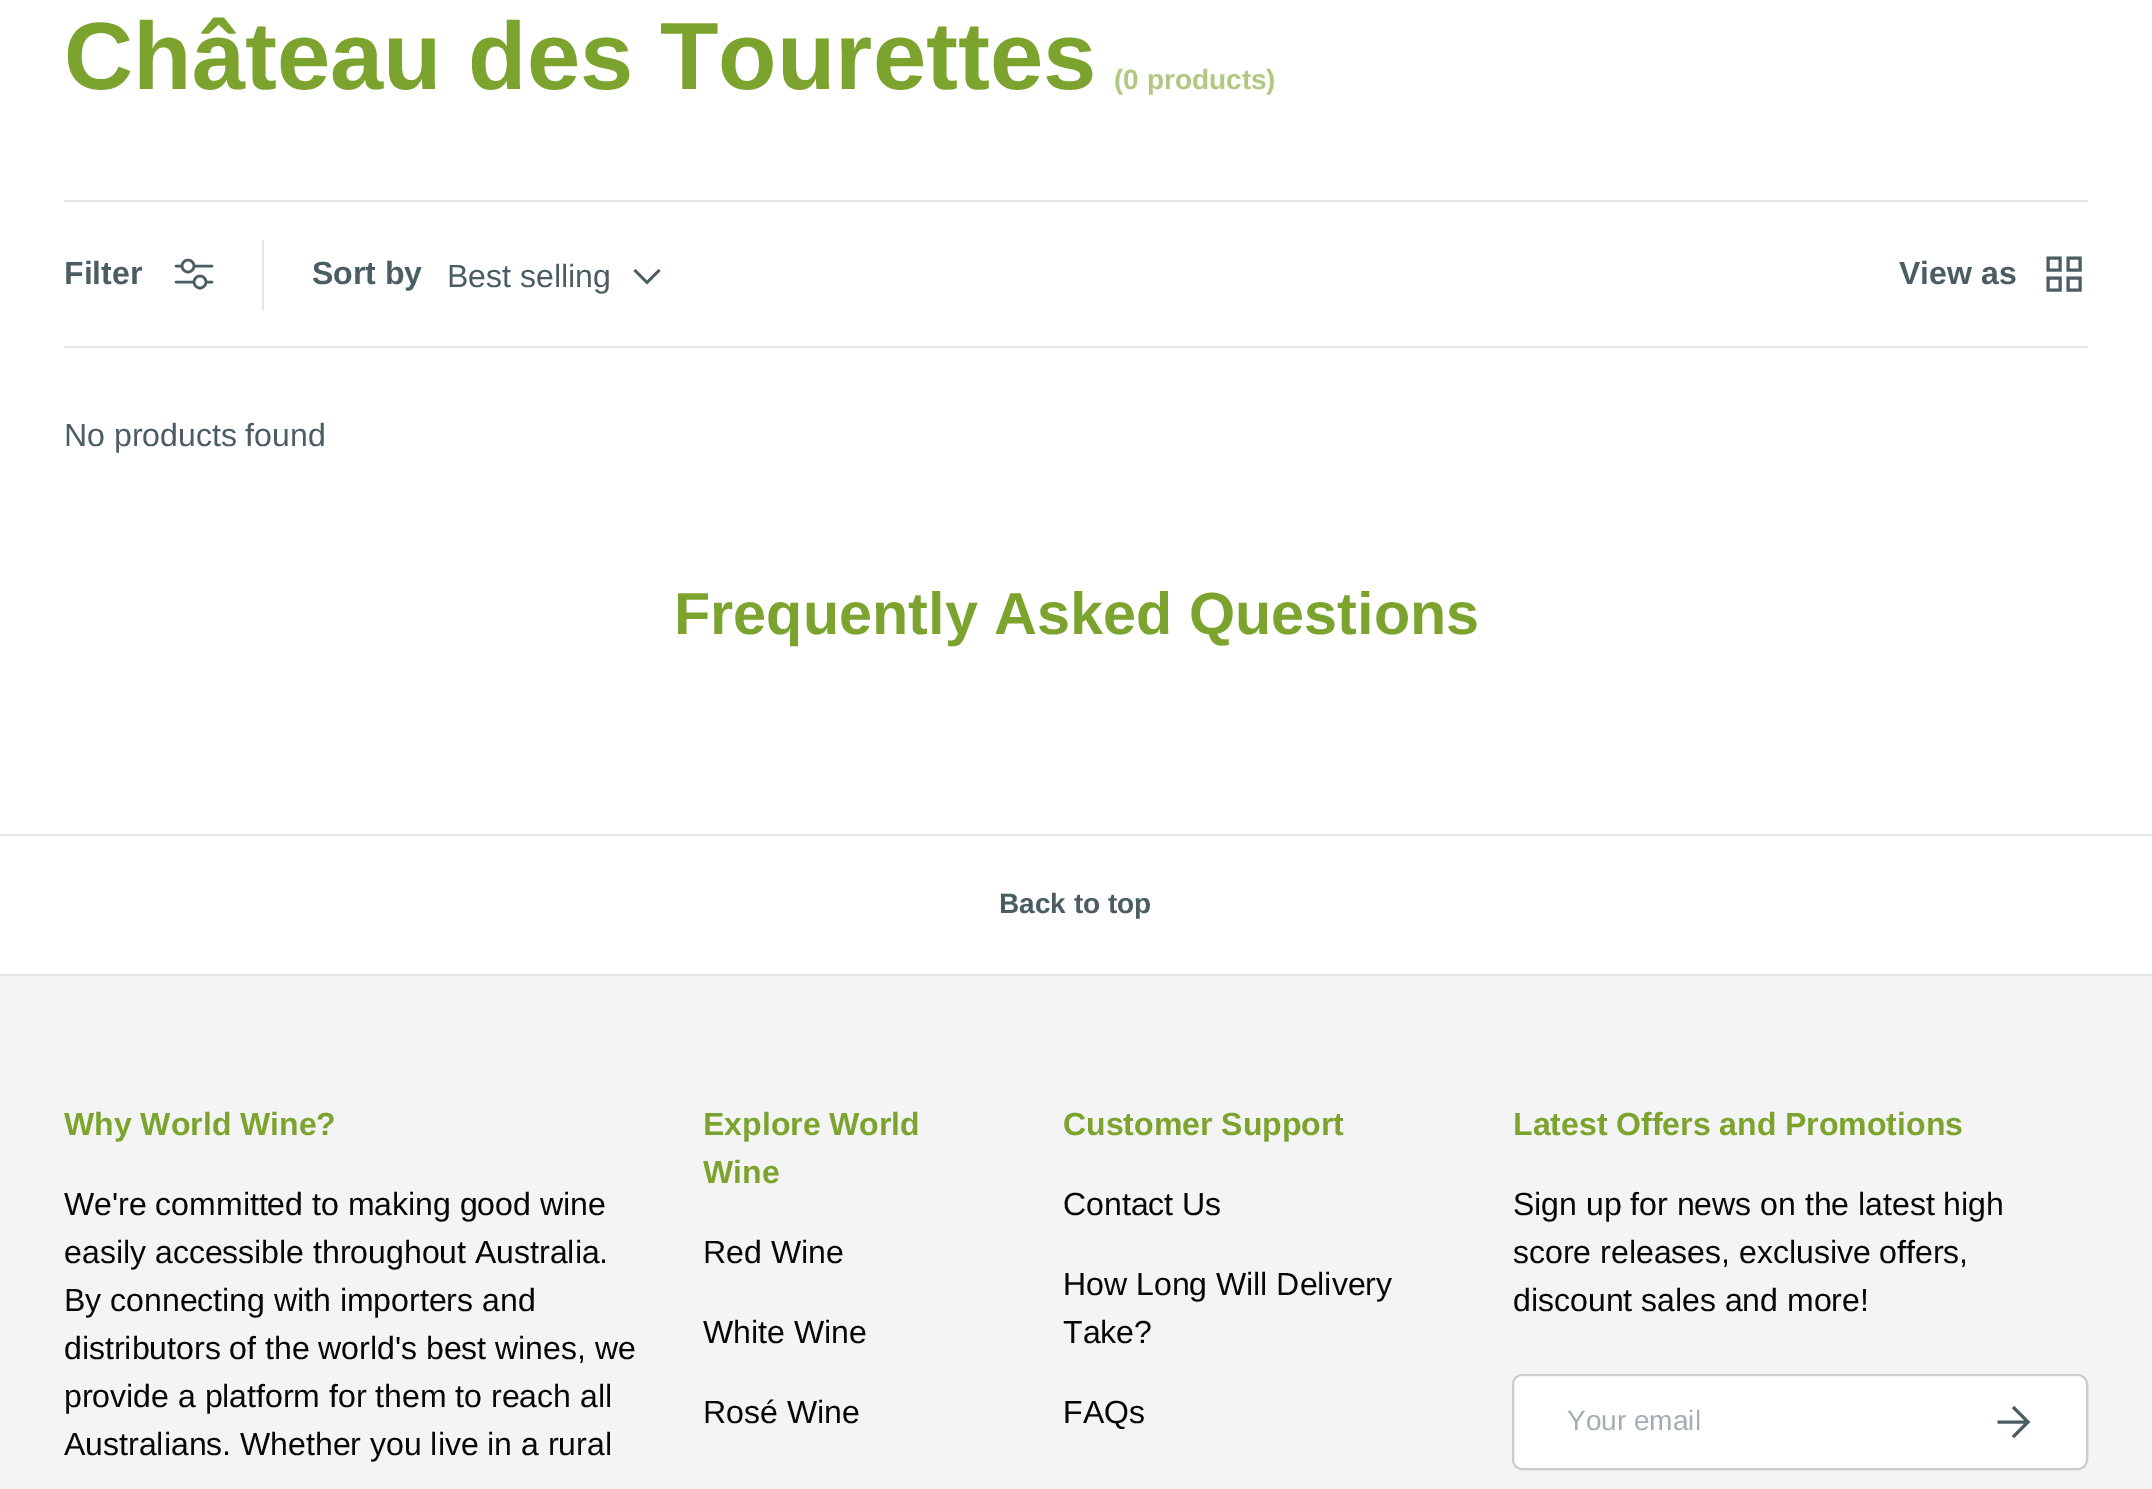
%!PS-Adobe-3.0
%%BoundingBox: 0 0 2152 1489
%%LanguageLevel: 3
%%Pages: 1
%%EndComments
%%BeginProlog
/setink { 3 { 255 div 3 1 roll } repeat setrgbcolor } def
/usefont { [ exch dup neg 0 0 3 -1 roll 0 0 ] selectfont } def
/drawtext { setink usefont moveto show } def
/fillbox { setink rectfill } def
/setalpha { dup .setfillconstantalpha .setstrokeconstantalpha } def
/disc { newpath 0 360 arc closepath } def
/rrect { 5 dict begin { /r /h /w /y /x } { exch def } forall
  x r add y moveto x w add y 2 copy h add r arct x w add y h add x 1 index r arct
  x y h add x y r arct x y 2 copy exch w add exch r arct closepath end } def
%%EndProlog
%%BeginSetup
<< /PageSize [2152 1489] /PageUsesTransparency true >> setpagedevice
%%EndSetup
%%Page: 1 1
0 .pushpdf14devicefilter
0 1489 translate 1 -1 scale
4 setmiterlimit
0 0 2152 1489 255 255 255 fillbox
(Château des Tourettes) 64 89 /LiberationSans-Bold 95.75 123 163 45 drawtext
(\(0 products\)) 1114 89 /LiberationSans-Bold 28 176 200 129 drawtext
64 200 2024 2 228 231 232 fillbox
64 346 2024 2 228 231 232 fillbox
(Filter) 64 284 /LiberationSans-Bold 32 73 93 99 drawtext
2.5 setlinewidth
1 setlinecap
1 setlinejoin
176 266 moveto 212 266 lineto 176 282 moveto 212 282 lineto stroke
255 255 255 setink
188 266 6 disc gsave fill grestore
73 93 99 setink
0 setlinecap
0 setlinejoin
stroke
255 255 255 setink
200 282 6 disc gsave fill grestore
73 93 99 setink
stroke
262 240 2 70 228 231 232 fillbox
(Sort by) 312 284 /LiberationSans-Bold 32 73 93 99 drawtext
(Best selling) 447 287 /LiberationSans-Regular 32 73 93 99 drawtext
659.5 270 moveto 647 282.5 lineto 634.5 270 lineto stroke
(View as) 1899 284 /LiberationSans-Bold 32 73 93 99 drawtext
3 setlinewidth
2048 258 moveto 2060 258 lineto 2060 270 lineto 2048 270 lineto closepath 2068 258 moveto 2080 258 lineto 2080 270 lineto 2068 270 lineto closepath 2048 278 moveto 2060 278 lineto 2060 290 lineto 2048 290 lineto closepath 2068 278 moveto 2080 278 lineto 2080 290 lineto 2068 290 lineto closepath stroke
(No products found) 64 446 /LiberationSans-Regular 32 73 93 99 drawtext
(Frequently Asked Questions) 674 634 /LiberationSans-Bold 59.4 123 163 45 drawtext
0 834 2152 2 228 231 232 fillbox
0 974 2152 2 228 231 232 fillbox
(Back to top) 999 913 /LiberationSans-Bold 28 73 93 99 drawtext
0 976 2152 513 244 244 244 fillbox
(Why World Wine?) 64 1135 /LiberationSans-Bold 32 123 163 45 drawtext
(We're committed to making good wine) 64 1215 /LiberationSans-Regular 32 7 7 7 drawtext
(easily accessible throughout Australia.) 64 1263 /LiberationSans-Regular 32 7 7 7 drawtext
(By connecting with importers and) 64 1311 /LiberationSans-Regular 32 7 7 7 drawtext
(distributors of the world's best wines, we) 64 1359 /LiberationSans-Regular 32 7 7 7 drawtext
(provide a platform for them to reach all) 64 1407 /LiberationSans-Regular 32 7 7 7 drawtext
(Australians. Whether you live in a rural) 64 1455 /LiberationSans-Regular 32 7 7 7 drawtext
(Explore World) 703 1135 /LiberationSans-Bold 32 123 163 45 drawtext
(Wine) 703 1183 /LiberationSans-Bold 32 123 163 45 drawtext
(Red Wine) 703 1263 /LiberationSans-Regular 32 7 7 7 drawtext
(White Wine) 703 1343 /LiberationSans-Regular 32 7 7 7 drawtext
(Rosé Wine) 703 1423 /LiberationSans-Regular 32 7 7 7 drawtext
(Customer Support) 1063 1135 /LiberationSans-Bold 32 123 163 45 drawtext
(Contact Us) 1063 1215 /LiberationSans-Regular 32 7 7 7 drawtext
(How Long Will Delivery) 1063 1295 /LiberationSans-Regular 32 7 7 7 drawtext
(Take?) 1063 1343 /LiberationSans-Regular 32 7 7 7 drawtext
(FAQs) 1063 1423 /LiberationSans-Regular 32 7 7 7 drawtext
(Latest Offers and Promotions) 1513 1135 /LiberationSans-Bold 32 123 163 45 drawtext
(Sign up for news on the latest high) 1513 1215 /LiberationSans-Regular 32 7 7 7 drawtext
(score releases, exclusive offers,) 1513 1263 /LiberationSans-Regular 32 7 7 7 drawtext
(discount sales and more!) 1513 1311 /LiberationSans-Regular 32 7 7 7 drawtext
255 255 255 setink
1512 1374 576 96 10 rrect fill
0.2 setalpha
7 7 7 setink
2 setlinewidth
1513 1375 574 94 9 rrect stroke
1 setalpha
(Your email) 1567 1430 /LiberationSans-Regular 28 164 174 177 drawtext
73 93 99 setink
3 setlinewidth
1997.5 1422 moveto 2027 1422 lineto 2013 1407 moveto 2028 1422 lineto 2013 1437 lineto stroke
.poppdf14devicefilter showpage
%%EOF
